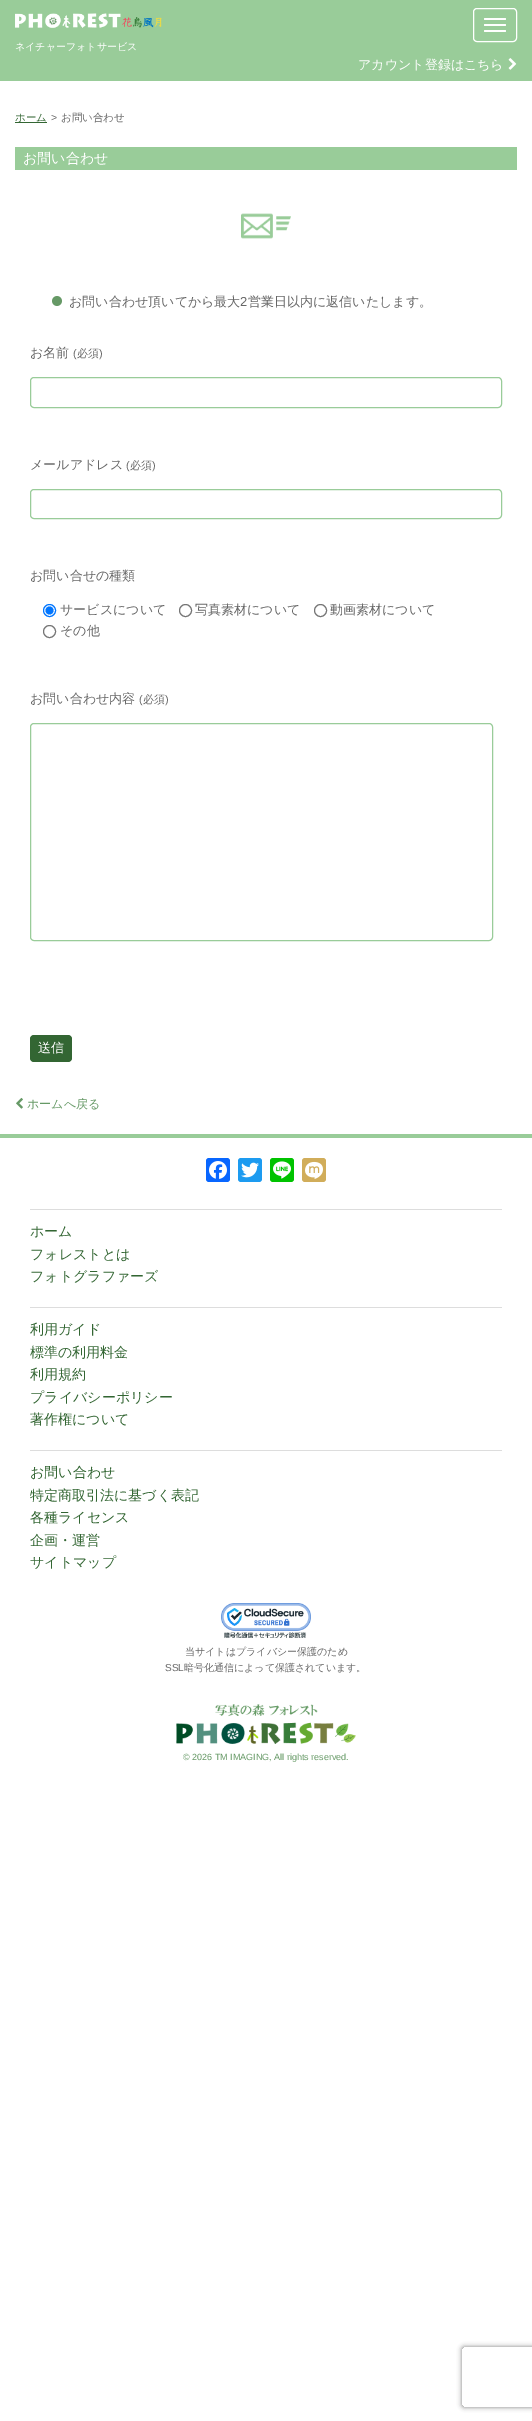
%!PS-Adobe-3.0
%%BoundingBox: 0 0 532 2421
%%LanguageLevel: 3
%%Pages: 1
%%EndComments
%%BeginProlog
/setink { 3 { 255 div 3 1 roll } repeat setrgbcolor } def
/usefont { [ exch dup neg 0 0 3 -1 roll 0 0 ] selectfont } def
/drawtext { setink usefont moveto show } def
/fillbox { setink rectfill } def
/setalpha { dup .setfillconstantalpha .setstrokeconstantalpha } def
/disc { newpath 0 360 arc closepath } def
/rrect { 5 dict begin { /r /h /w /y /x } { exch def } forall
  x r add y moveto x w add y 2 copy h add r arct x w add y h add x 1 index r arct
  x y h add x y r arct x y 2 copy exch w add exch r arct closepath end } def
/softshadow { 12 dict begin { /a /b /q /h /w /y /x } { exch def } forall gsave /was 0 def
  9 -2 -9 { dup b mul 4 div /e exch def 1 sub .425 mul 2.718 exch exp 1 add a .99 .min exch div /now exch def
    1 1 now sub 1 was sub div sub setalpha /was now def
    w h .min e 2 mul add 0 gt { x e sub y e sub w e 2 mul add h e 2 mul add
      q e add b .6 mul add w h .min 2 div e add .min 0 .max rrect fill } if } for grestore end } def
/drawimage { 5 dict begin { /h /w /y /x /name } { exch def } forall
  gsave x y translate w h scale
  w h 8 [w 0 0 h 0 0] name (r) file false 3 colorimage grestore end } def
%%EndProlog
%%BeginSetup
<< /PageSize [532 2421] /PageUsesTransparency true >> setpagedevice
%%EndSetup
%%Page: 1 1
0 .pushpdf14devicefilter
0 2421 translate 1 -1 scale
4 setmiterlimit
0 0 532 2421 255 255 255 fillbox
0 0 532 81 153 204 153 fillbox
255 255 255 setink
473.5 8.5 43 33 3.5 rrect stroke
484 18 22 2 1 rrect fill
484 24 22 2 1 rrect fill
484 30 22 2 1 rrect fill
(assets/img1.rgb) 15 13 147 15 drawimage
(ネイチャーフォトサービス) 15 50 /WenQuanYiZenHei-Medium 10 255 255 255 drawtext
(アカウント登録はこちら) 358 69 /WenQuanYiZenHei-Medium 13 255 255 255 drawtext
(assets/img2.rgb) 508 58 9 12 drawimage
15 122 32 1 51 102 51 fillbox
(ホーム) 15 121 /WenQuanYiZenHei-Medium 10.5 51 102 51 drawtext
(>) 51 121 /LiberationSans-Regular 10.5 102 102 102 drawtext
(お問い合わせ) 61 121 /WenQuanYiZenHei-Medium 10.5 102 102 102 drawtext
15 147 502 23 153 204 153 fillbox
(お問い合わせ) 23 163 /WenQuanYiZenHei-Medium 14 255 255 255 drawtext
(assets/img3.rgb) 241 213 50 26 drawimage
(assets/img4.rgb) 52 296 10 10 drawimage
(お問い合わせ頂いてから最大) 69 306 /WenQuanYiZenHei-Medium 13 102 102 102 drawtext
(2) 240 306 /LiberationSans-Regular 13 102 102 102 drawtext
(営業日以内に返信いたします。) 248 306 /WenQuanYiZenHei-Medium 13 102 102 102 drawtext
(お名前) 30 357 /WenQuanYiZenHei-Medium 13 102 102 102 drawtext
(\() 73 357 /LiberationSans-Regular 11 102 102 102 drawtext
(必須) 77 357 /WenQuanYiZenHei-Medium 11 102 102 102 drawtext
(\)) 99 357 /LiberationSans-Regular 11 102 102 102 drawtext
153 204 153 setink
30.5 377.5 471 30 3.5 rrect stroke
(メールアドレス) 30 469 /WenQuanYiZenHei-Medium 13 102 102 102 drawtext
(\() 126 469 /LiberationSans-Regular 11 102 102 102 drawtext
(必須) 130 469 /WenQuanYiZenHei-Medium 11 102 102 102 drawtext
(\)) 152 469 /LiberationSans-Regular 11 102 102 102 drawtext
153 204 153 setink
30.5 489.5 471 29 3.5 rrect stroke
(お問い合せの種類) 30 580 /WenQuanYiZenHei-Medium 13 102 102 102 drawtext
0 117 255 setink
49.5 610.5 6 disc stroke
49.5 610.5 4 disc fill
(サービスについて) 60 614 /WenQuanYiZenHei-Medium 13 102 102 102 drawtext
118 118 118 setink
185.5 610.5 6 disc stroke
(写真素材について) 195 614 /WenQuanYiZenHei-Medium 13 102 102 102 drawtext
118 118 118 setink
320.5 610.5 6 disc stroke
(動画素材について) 330 614 /WenQuanYiZenHei-Medium 13 102 102 102 drawtext
118 118 118 setink
49.5 631.5 6 disc stroke
(その他) 60 635 /WenQuanYiZenHei-Medium 13 102 102 102 drawtext
(お問い合わせ内容) 30 703 /WenQuanYiZenHei-Medium 13 102 102 102 drawtext
(\() 139 703 /LiberationSans-Regular 11 102 102 102 drawtext
(必須) 143 703 /WenQuanYiZenHei-Medium 11 102 102 102 drawtext
(\)) 165 703 /LiberationSans-Regular 11 102 102 102 drawtext
153 204 153 setink
30.5 723.5 462 217 3.5 rrect stroke
51 102 51 setink
30 1035 42 27 4 rrect fill
(送信) 38 1052 /WenQuanYiZenHei-Medium 13 255 255 255 drawtext
(assets/img5.rgb) 16 1097 7 12 drawimage
(ホームへ戻る) 27 1108 /WenQuanYiZenHei-Medium 12 102 153 102 drawtext
0 1134 532 4 153 204 153 fillbox
8 102 255 setink
206 1158 24 24 3 rrect fill
(assets/img6.rgb) 209 1161 18 18 drawimage
29 155 240 setink
238 1158 24 24 3 rrect fill
(assets/img7.rgb) 241 1162 18 16 drawimage
0 195 0 setink
270 1158 24 24 3 rrect fill
(assets/img8.rgb) 273 1161 18 18 drawimage
209 173 90 setink
302 1158 24 24 3 rrect fill
(assets/img9.rgb) 305 1161 18 18 drawimage
30 1209 472 1 221 221 221 fillbox
(ホーム) 30 1236 /WenQuanYiZenHei-Medium 14 51 102 51 drawtext
(フォレストとは) 30 1259 /WenQuanYiZenHei-Medium 14 51 102 51 drawtext
(フォトグラファーズ) 30 1281 /WenQuanYiZenHei-Medium 14 51 102 51 drawtext
30 1307 472 1 221 221 221 fillbox
(利用ガイド) 30 1334 /WenQuanYiZenHei-Medium 14 51 102 51 drawtext
(標準の利用料金) 30 1357 /WenQuanYiZenHei-Medium 14 51 102 51 drawtext
(利用規約) 30 1379 /WenQuanYiZenHei-Medium 14 51 102 51 drawtext
(プライバシーポリシー) 30 1402 /WenQuanYiZenHei-Medium 14 51 102 51 drawtext
(著作権について) 30 1424 /WenQuanYiZenHei-Medium 14 51 102 51 drawtext
30 1450 472 1 221 221 221 fillbox
(お問い合わせ) 30 1477 /WenQuanYiZenHei-Medium 14 51 102 51 drawtext
(特定商取引法に基づく表記) 30 1500 /WenQuanYiZenHei-Medium 14 51 102 51 drawtext
(各種ライセンス) 30 1522 /WenQuanYiZenHei-Medium 14 51 102 51 drawtext
(企画・運営) 30 1545 /WenQuanYiZenHei-Medium 14 51 102 51 drawtext
(サイトマップ) 30 1567 /WenQuanYiZenHei-Medium 14 51 102 51 drawtext
(assets/img10.rgb) 221 1603 90 35 drawimage
(当サイトはプライバシー保護のため) 185 1655 /WenQuanYiZenHei-Medium 10 102 102 102 drawtext
(SSL) 165 1671 /LiberationSans-Regular 10 102 102 102 drawtext
(暗号化通信によって保護されています。) 184 1671 /WenQuanYiZenHei-Medium 10 102 102 102 drawtext
(assets/img11.rgb) 176 1704 180 40 drawimage
(© 2026 TM IMAGING, All rights reserved.) 183 1760 /LiberationSans-Regular 9 102 153 102 drawtext
gsave
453 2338 moveto 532 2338 lineto 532 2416 lineto 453 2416 lineto closepath 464 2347 moveto 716 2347 lineto 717 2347 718 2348 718 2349 curveto 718 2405 lineto 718 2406 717 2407 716 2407 curveto 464 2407 lineto 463 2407 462 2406 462 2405 curveto 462 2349 lineto 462 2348 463 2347 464 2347 curveto closepath eoclip newpath
128 128 128 setink
462 2347 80 60 2 2.5 1 softshadow
grestore
.poppdf14devicefilter showpage
%%EOF
